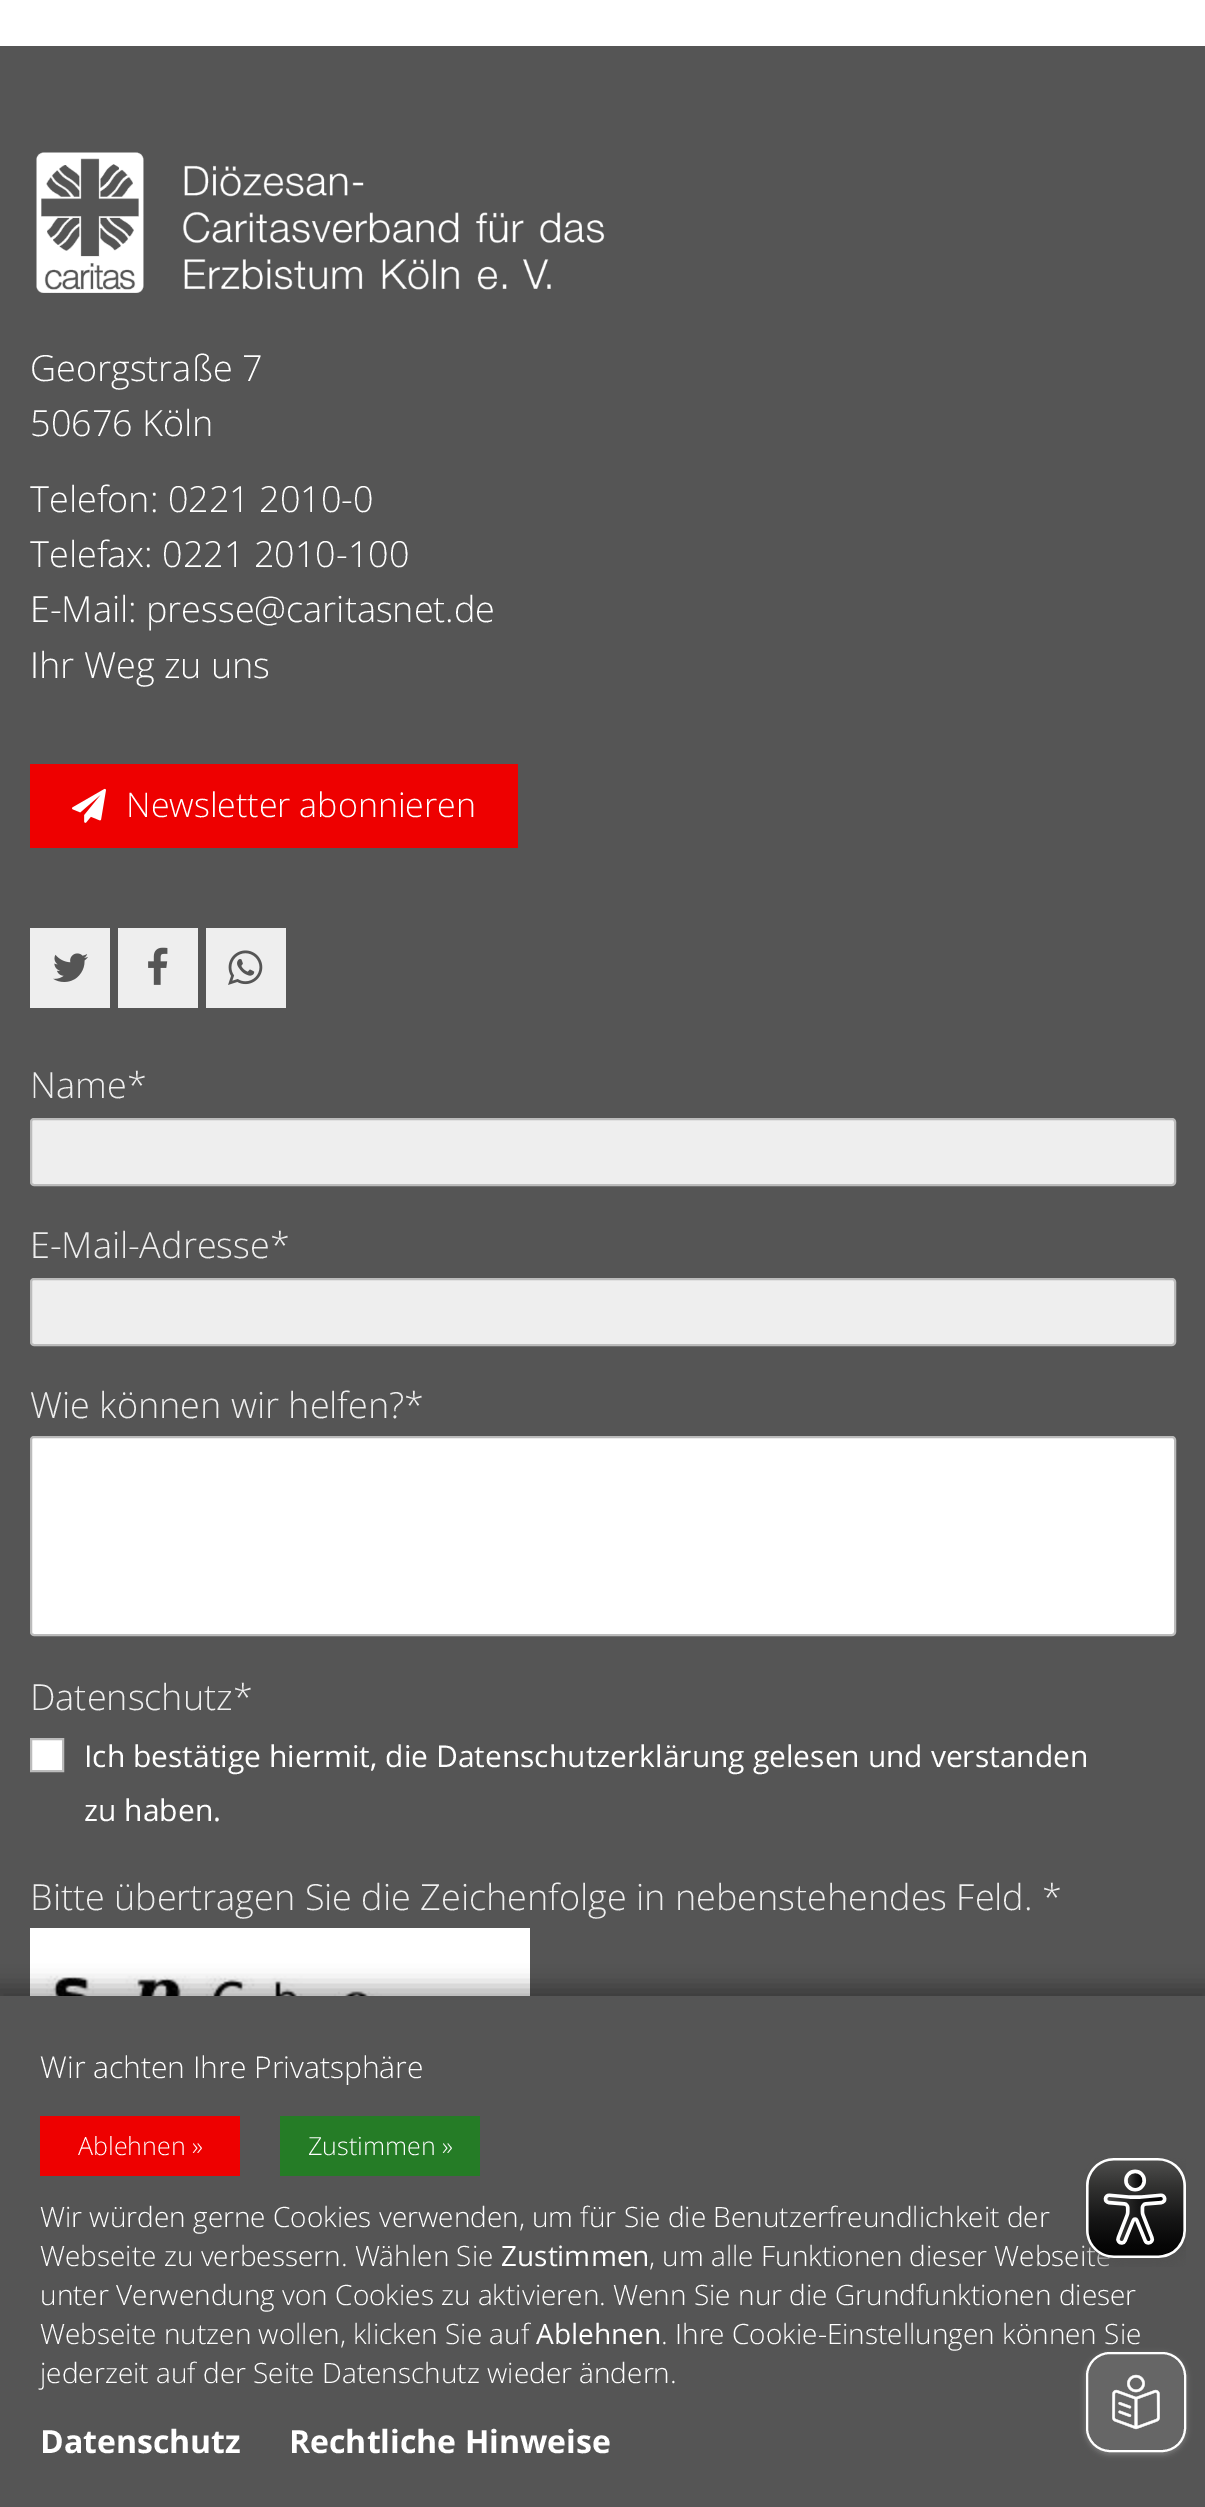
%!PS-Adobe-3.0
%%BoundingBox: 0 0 1205 2507
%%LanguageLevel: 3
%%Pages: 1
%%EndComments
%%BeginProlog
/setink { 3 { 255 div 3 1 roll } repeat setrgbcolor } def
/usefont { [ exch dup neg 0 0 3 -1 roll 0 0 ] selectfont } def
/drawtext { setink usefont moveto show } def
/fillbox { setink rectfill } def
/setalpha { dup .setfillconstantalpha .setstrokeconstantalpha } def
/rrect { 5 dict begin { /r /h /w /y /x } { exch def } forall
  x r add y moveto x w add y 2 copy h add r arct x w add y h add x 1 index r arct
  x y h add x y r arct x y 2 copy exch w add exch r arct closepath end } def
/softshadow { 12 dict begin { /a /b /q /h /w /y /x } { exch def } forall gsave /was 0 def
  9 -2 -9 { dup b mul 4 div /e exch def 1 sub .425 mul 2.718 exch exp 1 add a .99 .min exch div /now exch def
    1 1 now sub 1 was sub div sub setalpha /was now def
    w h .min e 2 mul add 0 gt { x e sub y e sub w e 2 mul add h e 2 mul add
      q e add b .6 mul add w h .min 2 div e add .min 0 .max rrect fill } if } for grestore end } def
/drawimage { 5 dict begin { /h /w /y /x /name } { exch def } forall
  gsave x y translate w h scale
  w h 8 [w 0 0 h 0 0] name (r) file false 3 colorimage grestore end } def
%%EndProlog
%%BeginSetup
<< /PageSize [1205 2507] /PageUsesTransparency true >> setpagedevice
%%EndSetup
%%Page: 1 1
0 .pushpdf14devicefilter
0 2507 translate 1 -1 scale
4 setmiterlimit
0 0 1205 2507 255 255 255 fillbox
0 46 1205 1950 85 85 85 fillbox
(assets/img1.rgb) 36 152 569 141 drawimage
(Georgstraße 7) 30 381 /OpenSans-Light 36 255 255 255 drawtext
(50676 Köln) 30 436 /OpenSans-Light 36 255 255 255 drawtext
(Telefon: 0221 2010-0) 30 512 /OpenSans-Light 36 255 255 255 drawtext
(Telefax: 0221 2010-100) 30 567 /OpenSans-Light 36 255 255 255 drawtext
(E-Mail: presse@caritasnet.de) 30 622 /OpenSans-Light 36 255 255 255 drawtext
(Ihr Weg zu uns) 30 678 /OpenSans-Light 36 255 255 255 drawtext
30 764 488 84 238 0 0 fillbox
(assets/img2.rgb) 72 788 34 35 drawimage
(Newsletter abonnieren) 126 817 /OpenSans-Light 34 255 255 255 drawtext
30 928 80 80 238 238 238 fillbox
(assets/img3.rgb) 53 953 35 29 drawimage
118 928 80 80 238 238 238 fillbox
(assets/img4.rgb) 148 947 20 38 drawimage
206 928 80 80 238 238 238 fillbox
(assets/img5.rgb) 228 950 35 35 drawimage
(Name*) 30 1098 /OpenSans-Light 36 238 238 238 drawtext
31 1119 1144 66 3 rrect gsave fill grestore
187 187 187 setink
2 setlinewidth
stroke
(E-Mail-Adresse*) 30 1258 /OpenSans-Light 36 238 238 238 drawtext
31 1279 1144 66 3 rrect gsave fill grestore
187 187 187 setink
stroke
(Wie können wir helfen?*) 30 1418 /OpenSans-Light 36 238 238 238 drawtext
255 255 255 setink
31 1437 1144 198 3 rrect gsave fill grestore
187 187 187 setink
stroke
(Datenschutz*) 30 1710 /OpenSans-Light 36 238 238 238 drawtext
255 255 255 setink
31 1739 moveto 63 1739 lineto 63 1771 lineto 31 1771 lineto closepath gsave fill grestore
187 187 187 setink
stroke
(Ich bestätige hiermit, die Datenschutzerklärung gelesen und verstanden) 84 1767 /OpenSans-Regular 30 255 255 255 drawtext
(zu haben.) 84 1821 /OpenSans-Regular 30 255 255 255 drawtext
(Bitte übertragen Sie die Zeichenfolge in nebenstehendes Feld. *) 30 1910 /OpenSans-Light 36 238 238 238 drawtext
(assets/img6.rgb) 30 1928 500 68 drawimage
0 0 0 setink
-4 1986 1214 520 0 10 0.3 softshadow
0 1996 1205 511 85 85 85 fillbox
132 132 132 setink
1086 2354 100 100 24 3 1 softshadow
102 102 102 setink
1087 2353 98 98 23 rrect gsave fill grestore
255 255 255 setink
stroke
(assets/img7.rgb) 1112 2374 48 56 drawimage
(Wir achten Ihre Privatsphäre) 40 2078 /OpenSans-Light 30 255 255 255 drawtext
40 2116 200 60 238 0 0 fillbox
(Ablehnen ») 78 2155 /OpenSans-Light 25 255 255 255 drawtext
280 2116 200 60 37 124 38 fillbox
(Zustimmen ») 308 2155 /OpenSans-Light 25 255 255 255 drawtext
(Wir würden gerne Cookies verwenden, um für Sie die Benutzerfreundlichkeit der) 40 2227 /OpenSans-Light 28 255 255 255 drawtext
(Webseite zu verbessern. Wählen Sie) 40 2266 /OpenSans-Light 28 255 255 255 drawtext
(Zustimmen) 501 2266 /OpenSans-Regular 28 255 255 255 drawtext
(, um alle Funktionen dieser Webseite) 649 2266 /OpenSans-Light 28 255 255 255 drawtext
(unter Verwendung von Cookies zu aktivieren. Wenn Sie nur die Grundfunktionen dieser) 40 2305 /OpenSans-Light 28 255 255 255 drawtext
(Webseite nutzen wollen, klicken Sie auf) 40 2344 /OpenSans-Light 28 255 255 255 drawtext
(Ablehnen) 536 2344 /OpenSans-Regular 28 255 255 255 drawtext
(. Ihre Cookie-Einstellungen können Sie) 661 2344 /OpenSans-Light 28 255 255 255 drawtext
(jederzeit auf der Seite Datenschutz wieder ändern.) 40 2383 /OpenSans-Light 28 255 255 255 drawtext
(Datenschutz) 40 2453 /OpenSans-Bold 32 255 255 255 drawtext
(Rechtliche Hinweise) 289 2453 /OpenSans-Bold 32 255 255 255 drawtext
(assets/img8.rgb) 1082 2158 104 109 drawimage
.poppdf14devicefilter showpage
%%EOF
